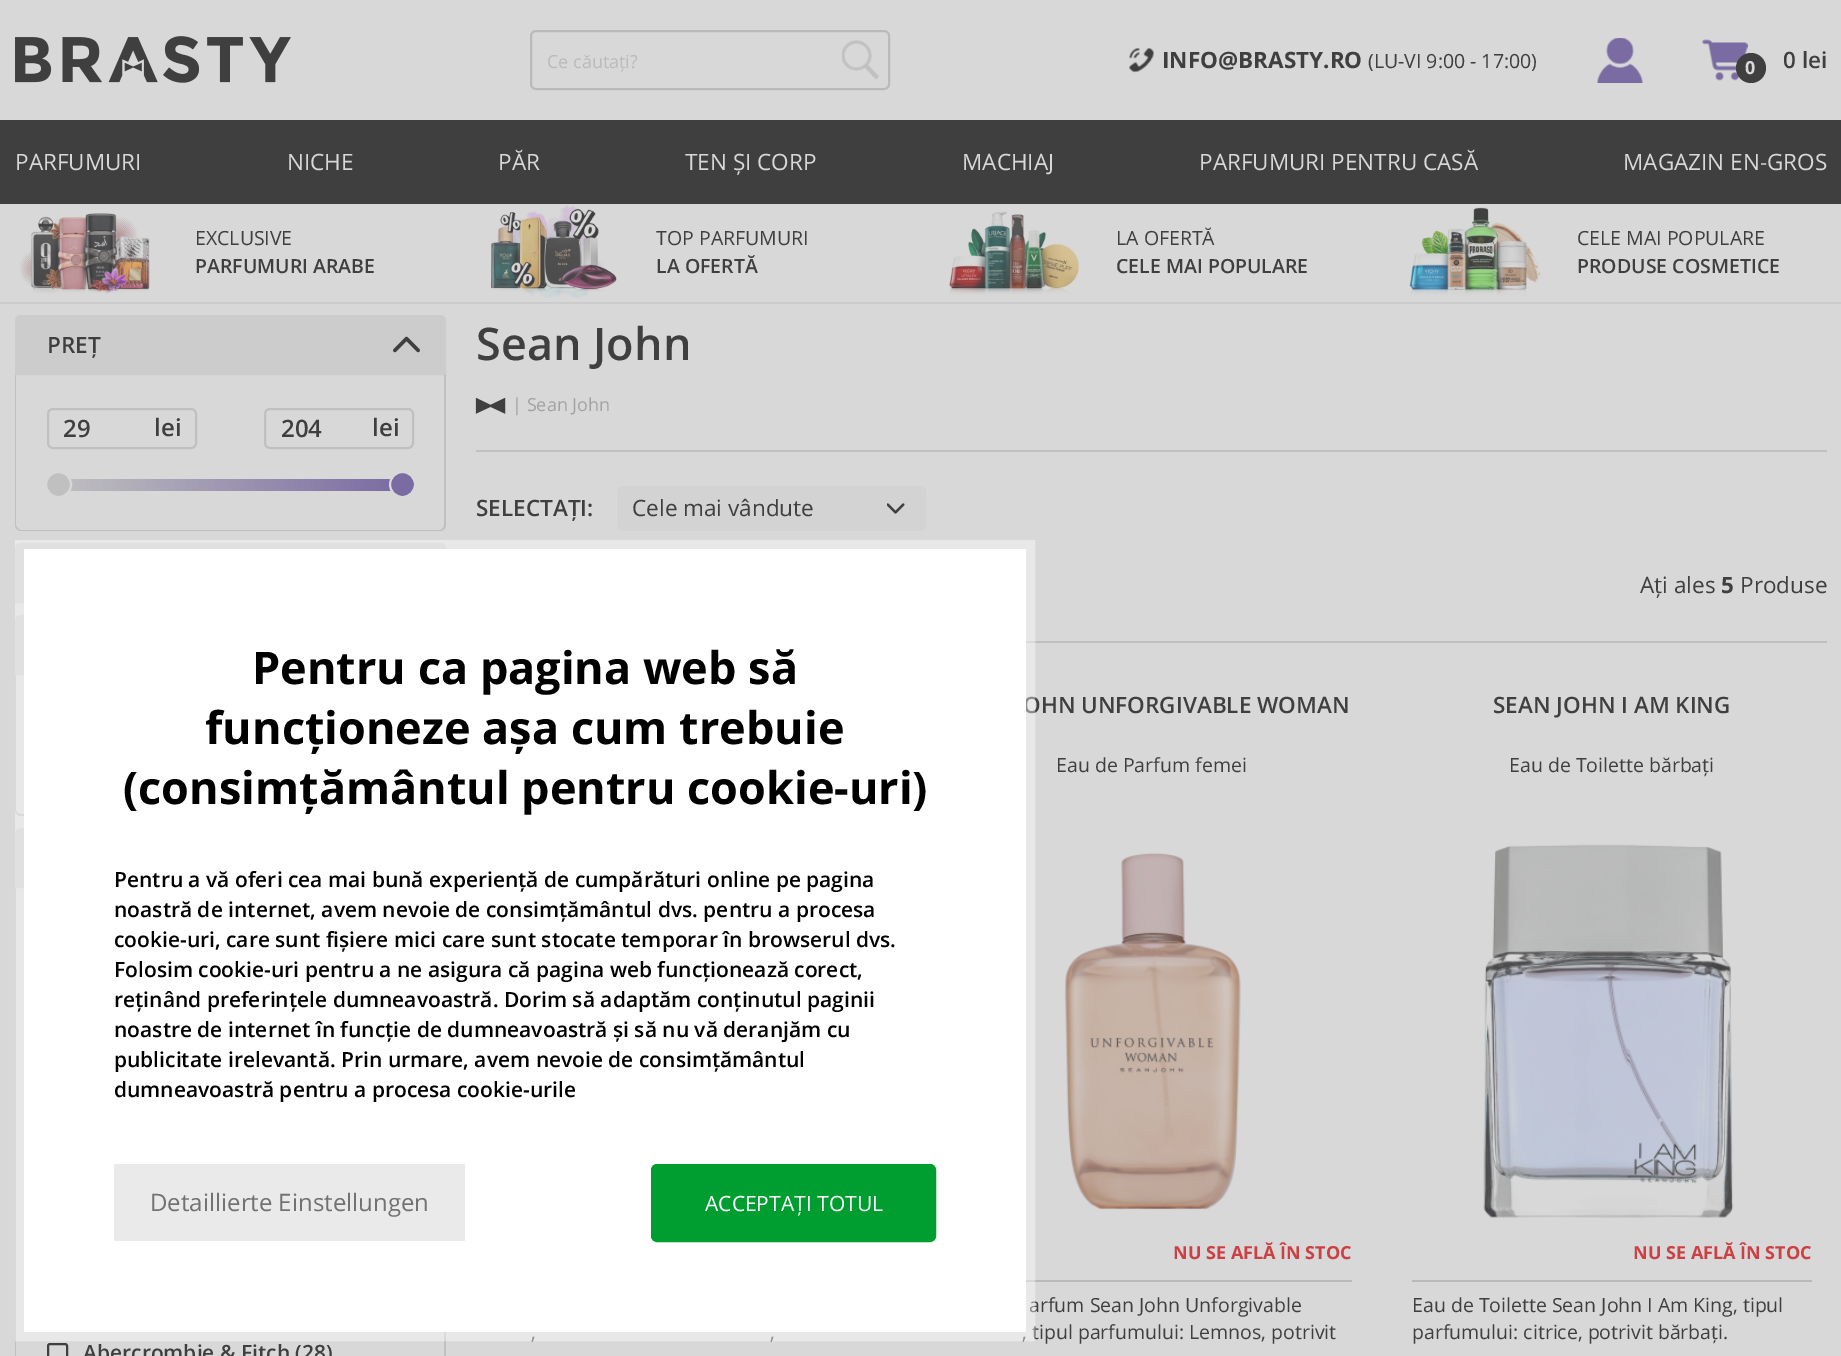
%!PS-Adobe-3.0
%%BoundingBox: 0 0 1841 1356
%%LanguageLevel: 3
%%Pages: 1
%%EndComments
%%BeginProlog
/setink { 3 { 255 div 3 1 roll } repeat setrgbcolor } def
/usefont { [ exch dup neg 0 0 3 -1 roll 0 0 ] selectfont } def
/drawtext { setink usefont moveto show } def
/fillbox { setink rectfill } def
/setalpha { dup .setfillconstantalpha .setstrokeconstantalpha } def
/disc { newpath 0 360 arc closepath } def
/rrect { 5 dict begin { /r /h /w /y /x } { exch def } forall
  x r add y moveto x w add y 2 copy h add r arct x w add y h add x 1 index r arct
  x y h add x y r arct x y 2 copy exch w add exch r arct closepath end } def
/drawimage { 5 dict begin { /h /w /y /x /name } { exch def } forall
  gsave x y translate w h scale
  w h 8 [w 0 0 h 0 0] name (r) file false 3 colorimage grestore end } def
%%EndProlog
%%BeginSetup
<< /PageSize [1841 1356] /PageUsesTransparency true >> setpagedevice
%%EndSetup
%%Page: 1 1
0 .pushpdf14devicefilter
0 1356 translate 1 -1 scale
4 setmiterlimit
0 0 1841 1356 216 216 216 fillbox
(assets/img1.rgb) 15 36 276 47 drawimage
186 186 186 setink
2 setlinewidth
531 31 358 58 5 rrect stroke
(Ce căutați?) 547 68 /OpenSans-Regular 18 186 186 186 drawtext
(assets/img2.rgb) 842 40 38 40 drawimage
(assets/img3.rgb) 1129 47 25 26 drawimage
(INFO@BRASTY.RO) 1162 68 /OpenSans-Bold 22.5 63 63 63 drawtext
(\(LU-VI 9:00 - 17:00\)) 1368 68 /OpenSans-Regular 19.5 63 63 63 drawtext
(assets/img4.rgb) 1597 38 46 45 drawimage
(assets/img5.rgb) 1702 39 46 42 drawimage
1751 68 15 disc fill
(0) 1745 74 /OpenSans-Bold 18 216 216 216 drawtext
(0 lei) 1783 68 /OpenSans-SemiBold 22.5 63 63 63 drawtext
0 120 1841 84 63 63 63 fillbox
(PARFUMURI) 15 170 /OpenSans-Regular 22.5 216 216 216 drawtext
(NICHE) 287 170 /OpenSans-Regular 22.5 216 216 216 drawtext
(PĂR) 498 170 /OpenSans-Regular 22.5 216 216 216 drawtext
(TEN ȘI CORP) 685 170 /OpenSans-Regular 22.5 216 216 216 drawtext
(MACHIAJ) 962 170 /OpenSans-Regular 22.5 216 216 216 drawtext
(PARFUMURI PENTRU CASĂ) 1199 170 /OpenSans-Regular 22.5 216 216 216 drawtext
(MAGAZIN EN-GROS) 1623 170 /OpenSans-Regular 22.5 216 216 216 drawtext
0 302 1841 2 204 204 204 fillbox
(assets/img6.rgb) 19 213 131 81 drawimage
(EXCLUSIVE) 195 245 /OpenSans-Regular 19.5 63 63 63 drawtext
(PARFUMURI ARABE) 195 273 /OpenSans-SemiBold 19.5 63 63 63 drawtext
(assets/img7.rgb) 491 205 126 93 drawimage
(TOP PARFUMURI) 656 245 /OpenSans-Regular 19.5 63 63 63 drawtext
(LA OFERTĂ) 656 273 /OpenSans-SemiBold 19.5 63 63 63 drawtext
(assets/img8.rgb) 949 211 131 84 drawimage
(LA OFERTĂ) 1116 245 /OpenSans-Regular 19.5 63 63 63 drawtext
(CELE MAI POPULARE) 1116 273 /OpenSans-SemiBold 19.5 63 63 63 drawtext
(assets/img9.rgb) 1409 207 132 89 drawimage
(CELE MAI POPULARE) 1577 245 /OpenSans-Regular 19.5 63 63 63 drawtext
(PRODUSE COSMETICE) 1577 273 /OpenSans-SemiBold 19.5 63 63 63 drawtext
204 204 204 setink
21 316 moveto 440 316 lineto 443 316 445 318 445 321 curveto 445 374 lineto 16 374 lineto 16 321 lineto 16 318 18 316 21 316 curveto closepath gsave fill grestore
stroke
(PREȚ) 47 353 /OpenSans-SemiBold 22.5 63 63 63 drawtext
(assets/img10.rgb) 393 336 27 17 drawimage
192 192 192 setink
15 375 moveto 446 375 lineto 446 525 lineto 446 528 443 531 440 531 curveto 21 531 lineto 18 531 15 528 15 525 curveto closepath 16 375 moveto 444 375 lineto 444 525 lineto 444 527 442 530 440 530 curveto 21 530 lineto 19 530 16 527 16 525 curveto closepath eofill
48 409 148 39 5 rrect stroke
(29) 63 437 /OpenSans-SemiBold 24 63 63 63 drawtext
(lei) 154 436 /OpenSans-SemiBold 24 63 63 63 drawtext
192 192 192 setink
265 409 148 39 5 rrect stroke
(204) 281 437 /OpenSans-SemiBold 24 63 63 63 drawtext
(lei) 372 436 /OpenSans-SemiBold 24 63 63 63 drawtext
gsave 70 479 moveto 391 479 lineto 391 491 lineto 70 491 lineto closepath clip newpath
<< /ShadingType 2 /ColorSpace /DeviceRGB /Coords [59 485 402 485] /Extend [true true] /Function << /FunctionType 2 /Domain [0 1] /C0 [0.753 0.753 0.753] /C1 [0.478 0.42 0.635] /N 1 >> >> shfill grestore
192 192 192 setink
58.5 484.5 12.5 disc gsave fill grestore
216 216 216 setink
stroke
122 107 162 setink
402.5 484.5 12.5 disc gsave fill grestore
216 216 216 setink
stroke
204 204 204 setink
21 544 moveto 440 544 lineto 443 544 445 546 445 549 curveto 445 602 lineto 16 602 lineto 16 549 lineto 16 546 18 544 21 544 curveto closepath gsave fill grestore
stroke
21 616 moveto 440 616 lineto 443 616 445 618 445 621 curveto 445 674 lineto 16 674 lineto 16 621 lineto 16 618 18 616 21 616 curveto closepath gsave fill grestore
stroke
192 192 192 setink
15 675 moveto 446 675 lineto 446 810 lineto 446 813 443 816 440 816 curveto 21 816 lineto 18 816 15 813 15 810 curveto closepath 16 675 moveto 444 675 lineto 444 810 lineto 444 812 442 814 440 814 curveto 21 814 lineto 19 814 16 812 16 810 curveto closepath eofill
204 204 204 setink
21 829 moveto 440 829 lineto 443 829 445 831 445 834 curveto 445 887 lineto 16 887 lineto 16 834 lineto 16 831 18 829 21 829 curveto closepath gsave fill grestore
stroke
192 192 192 setink
15 888 moveto 446 888 lineto 446 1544 lineto 446 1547 443 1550 440 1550 curveto 21 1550 lineto 18 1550 15 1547 15 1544 curveto closepath 16 888 moveto 444 888 lineto 444 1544 lineto 444 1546 442 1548 440 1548 curveto 21 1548 lineto 19 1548 16 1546 16 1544 curveto closepath eofill
63 63 63 setink
48 1344 19 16 2 rrect stroke
(Abercrombie & Fitch \(28\)) 83 1360 /OpenSans-SemiBold 21 63 63 63 drawtext
(Sean John) 476 360 /OpenSans-SemiBold 45 63 63 63 drawtext
(assets/img11.rgb) 475 397 31 17 drawimage
(| Sean John) 512 411 /OpenSans-Regular 18 162 162 162 drawtext
476 450 1351 2 192 192 192 fillbox
1026 641 801 2 192 192 192 fillbox
(SELECTAȚI:) 476 516 /OpenSans-SemiBold 22.5 63 63 63 drawtext
211 211 211 setink
617 486 309 45 6 rrect fill
(assets/img12.rgb) 887 503 18 11 drawimage
(Cele mai vândute) 632 516 /OpenSans-Regular 22.5 63 63 63 drawtext
(Ați ales) 1640 593 /OpenSans-Regular 22.5 63 63 63 drawtext
(5) 1721 593 /OpenSans-Bold 22.5 63 63 63 drawtext
(Produse) 1740 593 /OpenSans-Regular 22.5 63 63 63 drawtext
(,) 531 1339 /OpenSans-Regular 19.5 63 63 63 drawtext
(,) 770 1339 /OpenSans-Regular 19.5 63 63 63 drawtext
(OHN UNFORGIVABLE WOMAN) 1023 713 /OpenSans-SemiBold 22.5 63 63 63 drawtext
(Eau de Parfum femei) 1056 772 /OpenSans-Regular 19.5 63 63 63 drawtext
(assets/img13.rgb) 1064 852 177 358 drawimage
(NU SE AFLĂ ÎN STOC) 1173 1259 /OpenSans-Bold 18 204 63 67 drawtext
1026 1280 326 2 186 186 186 fillbox
(arfum Sean John Unforgivable) 1029 1312 /OpenSans-Regular 19.5 63 63 63 drawtext
(, tipul parfumului: Lemnos, potrivit) 1022 1339 /OpenSans-Regular 19.5 63 63 63 drawtext
(SEAN JOHN I AM KING) 1493 713 /OpenSans-SemiBold 22.5 63 63 63 drawtext
(Eau de Toilette bărbați) 1509 772 /OpenSans-Regular 19.5 63 63 63 drawtext
(assets/img14.rgb) 1483 844 251 374 drawimage
(NU SE AFLĂ ÎN STOC) 1633 1259 /OpenSans-Bold 18 204 63 67 drawtext
1412 1280 400 2 186 186 186 fillbox
(Eau de Toilette Sean John I Am King, tipul) 1412 1312 /OpenSans-Regular 19.5 63 63 63 drawtext
(parfumului: citrice, potrivit bărbați.) 1412 1339 /OpenSans-Regular 19.5 63 63 63 drawtext
0.4 setalpha
255 255 255 setink
9 setlinewidth
19.5 544.5 1011 792 rectstroke
1 setalpha
24 549 1002 783 255 255 255 fillbox
(Pentru ca pagina web să) 252 684 /OpenSans-Bold 45 0 0 0 drawtext
(funcționeze așa cum trebuie) 205 744 /OpenSans-Bold 45 0 0 0 drawtext
(\(consimțământul pentru cookie-uri\)) 123 804 /OpenSans-Bold 45 0 0 0 drawtext
(Pentru a vă oferi cea mai bună experiență de cumpărături online pe pagina) 114 887 /OpenSans-SemiBold 21 0 0 0 drawtext
(noastră de internet, avem nevoie de consimțământul dvs. pentru a procesa) 114 917 /OpenSans-SemiBold 21 0 0 0 drawtext
(cookie-uri, care sunt fișiere mici care sunt stocate temporar în browserul dvs.) 114 947 /OpenSans-SemiBold 21 0 0 0 drawtext
(Folosim cookie-uri pentru a ne asigura că pagina web funcționează corect,) 114 977 /OpenSans-SemiBold 21 0 0 0 drawtext
(reținând preferințele dumneavoastră. Dorim să adaptăm conținutul paginii) 114 1007 /OpenSans-SemiBold 21 0 0 0 drawtext
(noastre de internet în funcție de dumneavoastră și să nu vă deranjăm cu) 114 1037 /OpenSans-SemiBold 21 0 0 0 drawtext
(publicitate irelevantă. Prin urmare, avem nevoie de consimțământul) 114 1067 /OpenSans-SemiBold 21 0 0 0 drawtext
(dumneavoastră pentru a procesa cookie-urile) 114 1097 /OpenSans-SemiBold 21 0 0 0 drawtext
114 1164 351 77 234 234 234 fillbox
(Detaillierte Einstellungen) 150 1211 /OpenSans-Regular 24 114 114 114 drawtext
0 158 49 setink
652 1165 283 76 5 rrect gsave fill grestore
2 setlinewidth
stroke
(ACCEPTAȚI TOTUL) 705 1211 /OpenSans-Regular 21 255 255 255 drawtext
.poppdf14devicefilter showpage
%%EOF
